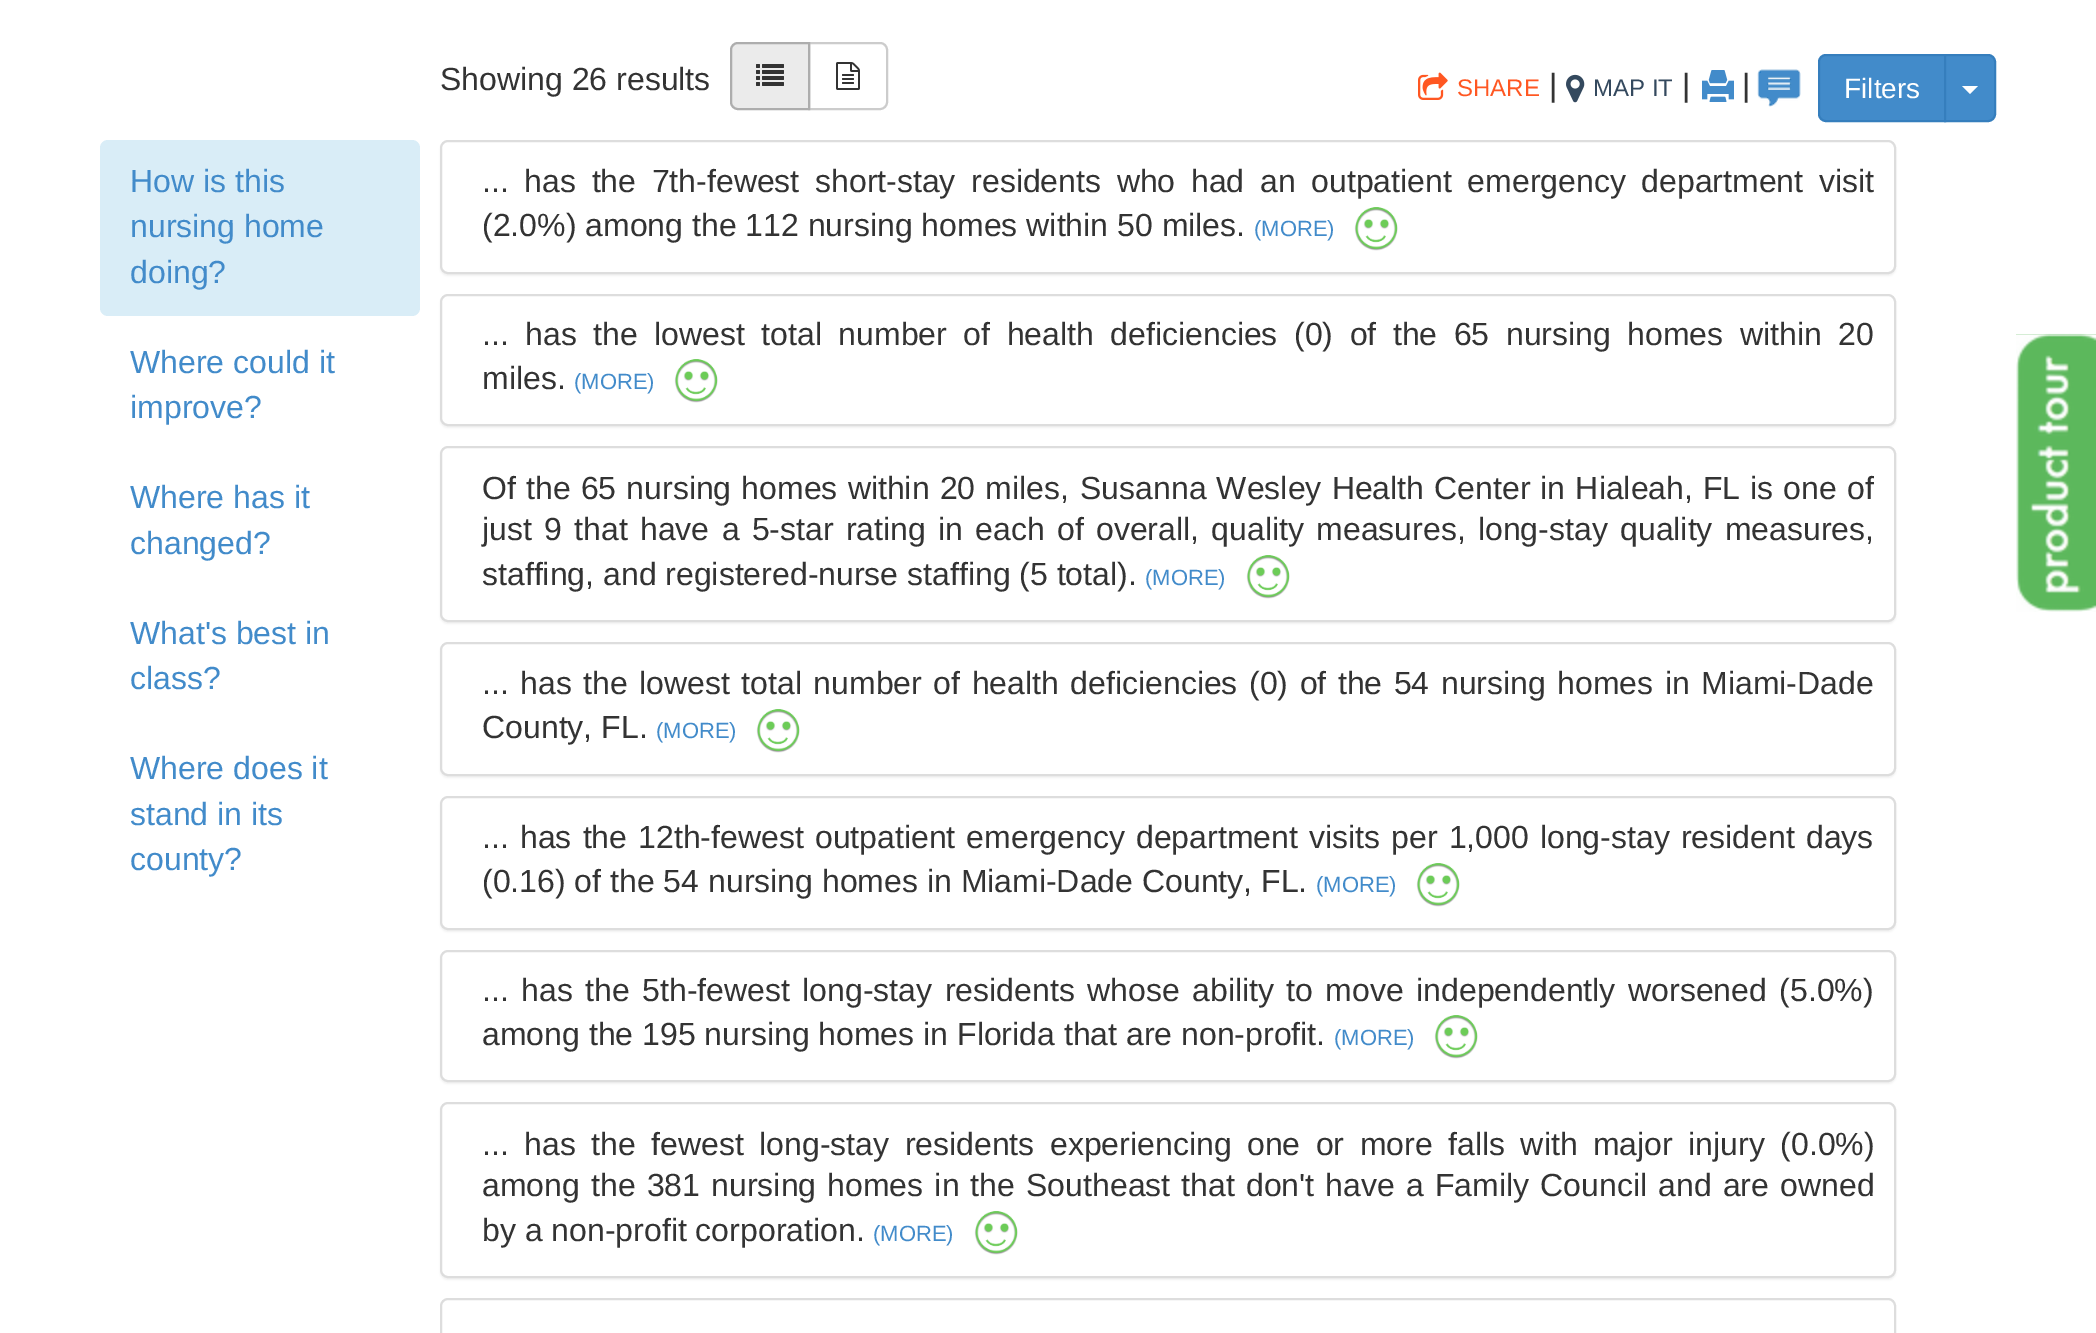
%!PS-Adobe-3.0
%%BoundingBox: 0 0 2096 1333
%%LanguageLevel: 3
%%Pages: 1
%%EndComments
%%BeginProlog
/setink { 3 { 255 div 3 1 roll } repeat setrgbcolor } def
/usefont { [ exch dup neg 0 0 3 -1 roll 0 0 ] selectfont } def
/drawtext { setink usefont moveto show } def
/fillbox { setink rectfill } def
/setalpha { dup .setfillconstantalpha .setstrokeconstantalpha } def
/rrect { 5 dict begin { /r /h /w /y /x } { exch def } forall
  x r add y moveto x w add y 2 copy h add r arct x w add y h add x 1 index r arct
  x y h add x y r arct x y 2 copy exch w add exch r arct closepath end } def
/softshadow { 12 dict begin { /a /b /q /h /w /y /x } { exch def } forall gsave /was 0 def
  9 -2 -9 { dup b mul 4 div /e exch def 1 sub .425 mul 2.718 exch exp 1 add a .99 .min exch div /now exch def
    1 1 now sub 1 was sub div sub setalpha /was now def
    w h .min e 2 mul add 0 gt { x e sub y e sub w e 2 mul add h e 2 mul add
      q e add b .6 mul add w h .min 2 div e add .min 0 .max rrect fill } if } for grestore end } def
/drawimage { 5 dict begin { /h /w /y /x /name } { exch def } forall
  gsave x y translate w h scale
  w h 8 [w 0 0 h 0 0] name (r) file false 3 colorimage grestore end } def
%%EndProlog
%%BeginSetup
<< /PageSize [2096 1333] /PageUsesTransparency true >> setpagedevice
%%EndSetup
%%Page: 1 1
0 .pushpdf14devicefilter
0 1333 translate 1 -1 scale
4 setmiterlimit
0 0 2096 1333 255 255 255 fillbox
(Showing 26 results) 440 90 /LiberationSans-Regular 32 51 51 51 drawtext
204 204 204 setink
2 setlinewidth
809 43 moveto 880 43 lineto 884 43 887 46 887 50 curveto 887 102 lineto 887 106 884 109 880 109 curveto 809 109 lineto closepath stroke
235 235 235 setink
738 43 moveto 809 43 lineto 809 109 lineto 738 109 lineto 734 109 731 106 731 102 curveto 731 50 lineto 731 46 734 43 738 43 curveto closepath gsave fill grestore
173 173 173 setink
stroke
(assets/img1.rgb) 756 64 28 22 drawimage
(assets/img2.rgb) 836 62 24 28 drawimage
(assets/img3.rgb) 1418 72 30 28 drawimage
(SHARE) 1457 96 /LiberationSans-Regular 24 255 87 34 drawtext
(|) 1549 96 /LiberationSans-Regular 32 51 51 51 drawtext
(assets/img4.rgb) 1566 74 19 29 drawimage
(MAP IT) 1593 96 /LiberationSans-Regular 24 52 73 94 drawtext
(|) 1682 96 /LiberationSans-Regular 32 51 51 51 drawtext
(assets/img5.rgb) 1702 70 32 32 drawimage
(|) 1742 96 /LiberationSans-Regular 32 51 51 51 drawtext
(assets/img6.rgb) 1757 69 44 38 drawimage
66 139 202 setink
1826 55 moveto 1945 55 lineto 1945 121 lineto 1826 121 lineto 1822 121 1819 118 1819 114 curveto 1819 62 lineto 1819 58 1822 55 1826 55 curveto closepath gsave fill grestore
53 126 189 setink
stroke
(Filters) 1844 98 /LiberationSans-Regular 28 255 255 255 drawtext
66 139 202 setink
1945 55 moveto 1988 55 lineto 1992 55 1995 58 1995 62 curveto 1995 114 lineto 1995 118 1992 121 1988 121 curveto 1945 121 lineto closepath gsave fill grestore
53 126 189 setink
stroke
255 255 255 setink
1962 86 moveto 1978 86 lineto 1970 94 lineto closepath fill
217 237 247 setink
100 140 320 176 8 rrect fill
(How is this) 130 192 /LiberationSans-Regular 32 66 139 202 drawtext
(nursing home) 130 237 /LiberationSans-Regular 32 66 139 202 drawtext
(doing?) 130 283 /LiberationSans-Regular 32 66 139 202 drawtext
(Where could it) 130 373 /LiberationSans-Regular 32 66 139 202 drawtext
(improve?) 130 418 /LiberationSans-Regular 32 66 139 202 drawtext
(Where has it) 130 508 /LiberationSans-Regular 32 66 139 202 drawtext
(changed?) 130 554 /LiberationSans-Regular 32 66 139 202 drawtext
(What's best in) 130 644 /LiberationSans-Regular 32 66 139 202 drawtext
(class?) 130 689 /LiberationSans-Regular 32 66 139 202 drawtext
(Where does it) 130 779 /LiberationSans-Regular 32 66 139 202 drawtext
(stand in its) 130 825 /LiberationSans-Regular 32 66 139 202 drawtext
(county?) 130 870 /LiberationSans-Regular 32 66 139 202 drawtext
0 0 0 setink
440 142 1456 134 8 1 0.05 softshadow
255 255 255 setink
441 141 1454 132 7 rrect gsave fill grestore
221 221 221 setink
stroke
51 51 51 setink
482 192 moveto 6.75 0 32 (... has the 7th-fewest short-stay residents who had an outpatient emergency department visit) widthshow
(\(2.0%\) among the 112 nursing homes within 50 miles.) 482 236 /LiberationSans-Regular 32 51 51 51 drawtext
(\(MORE\)) 1254 236 /LiberationSans-Regular 22 66 139 202 drawtext
(assets/img7.rgb) 1354 207 44 44 drawimage
0 0 0 setink
440 296 1456 132 8 1 0.05 softshadow
255 255 255 setink
441 295 1454 130 7 rrect gsave fill grestore
221 221 221 setink
stroke
/LiberationSans-Regular 32 usefont
51 51 51 setink
482 345 moveto 7.6 0 32 (... has the lowest total number of health deficiencies \(0\) of the 65 nursing homes within 20) widthshow
(miles.) 482 389 /LiberationSans-Regular 32 51 51 51 drawtext
(\(MORE\)) 574 389 /LiberationSans-Regular 22 66 139 202 drawtext
(assets/img7.rgb) 674 359 44 44 drawimage
0 0 0 setink
440 448 1456 176 8 1 0.05 softshadow
255 255 255 setink
441 447 1454 174 7 rrect gsave fill grestore
221 221 221 setink
stroke
/LiberationSans-Regular 32 usefont
51 51 51 setink
482 499 moveto 1.25 0 32 (Of the 65 nursing homes within 20 miles,) widthshow
1080 499 moveto 1.25 0 32 (Susanna Wesley Health Center in Hialeah, FL) widthshow
1750 499 moveto 1.25 0 32 (is one of) widthshow
482 540 moveto 3.4 0 32 (just 9 that have a 5-star rating in each of overall, quality measures, long-stay quality measures,) widthshow
(staffing, and registered-nurse staffing \(5 total\).) 482 585 /LiberationSans-Regular 32 51 51 51 drawtext
(\(MORE\)) 1145 585 /LiberationSans-Regular 22 66 139 202 drawtext
(assets/img7.rgb) 1246 555 44 44 drawimage
0 0 0 setink
440 644 1456 134 8 1 0.05 softshadow
255 255 255 setink
441 643 1454 132 7 rrect gsave fill grestore
221 221 221 setink
stroke
/LiberationSans-Regular 32 usefont
51 51 51 setink
482 694 moveto 2.6 0 32 (... has the lowest total number of health deficiencies \(0\) of the 54 nursing homes in Miami-Dade) widthshow
(County, FL.) 482 738 /LiberationSans-Regular 32 51 51 51 drawtext
(\(MORE\)) 656 738 /LiberationSans-Regular 22 66 139 202 drawtext
(assets/img7.rgb) 756 709 44 44 drawimage
0 0 0 setink
440 798 1456 134 8 1 0.05 softshadow
255 255 255 setink
441 797 1454 132 7 rrect gsave fill grestore
221 221 221 setink
stroke
/LiberationSans-Regular 32 usefont
51 51 51 setink
482 848 moveto 2.25 0 32 (... has the 12th-fewest outpatient emergency department visits per 1,000 long-stay resident days) widthshow
(\(0.16\) of the 54 nursing homes in Miami-Dade County, FL.) 482 892 /LiberationSans-Regular 32 51 51 51 drawtext
(\(MORE\)) 1316 892 /LiberationSans-Regular 22 66 139 202 drawtext
(assets/img7.rgb) 1416 863 44 44 drawimage
0 0 0 setink
440 952 1456 132 8 1 0.05 softshadow
255 255 255 setink
441 951 1454 130 7 rrect gsave fill grestore
221 221 221 setink
stroke
/LiberationSans-Regular 32 usefont
51 51 51 setink
482 1001 moveto 3.6 0 32 (... has the 5th-fewest long-stay residents whose ability to move independently worsened \(5.0%\)) widthshow
(among the 195 nursing homes in Florida that are non-profit.) 482 1045 /LiberationSans-Regular 32 51 51 51 drawtext
(\(MORE\)) 1334 1045 /LiberationSans-Regular 22 66 139 202 drawtext
(assets/img7.rgb) 1434 1015 44 44 drawimage
0 0 0 setink
440 1104 1456 176 8 1 0.05 softshadow
255 255 255 setink
441 1103 1454 174 7 rrect gsave fill grestore
221 221 221 setink
stroke
/LiberationSans-Regular 32 usefont
51 51 51 setink
482 1155 moveto 6.6 0 32 (... has the fewest long-stay residents experiencing one or more falls with major injury \(0.0%\)) widthshow
482 1196 moveto 2.25 0 32 (among the 381 nursing homes in the Southeast that don't have a Family Council and are owned) widthshow
(by a non-profit corporation.) 482 1241 /LiberationSans-Regular 32 51 51 51 drawtext
(\(MORE\)) 873 1241 /LiberationSans-Regular 22 66 139 202 drawtext
(assets/img7.rgb) 974 1211 44 44 drawimage
221 221 221 setink
441 1299 1454 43 7 rrect stroke
2016 334 80 278 92 184 92 fillbox
(assets/img8.rgb) 2016 333 80 279 drawimage
.poppdf14devicefilter showpage
%%EOF
